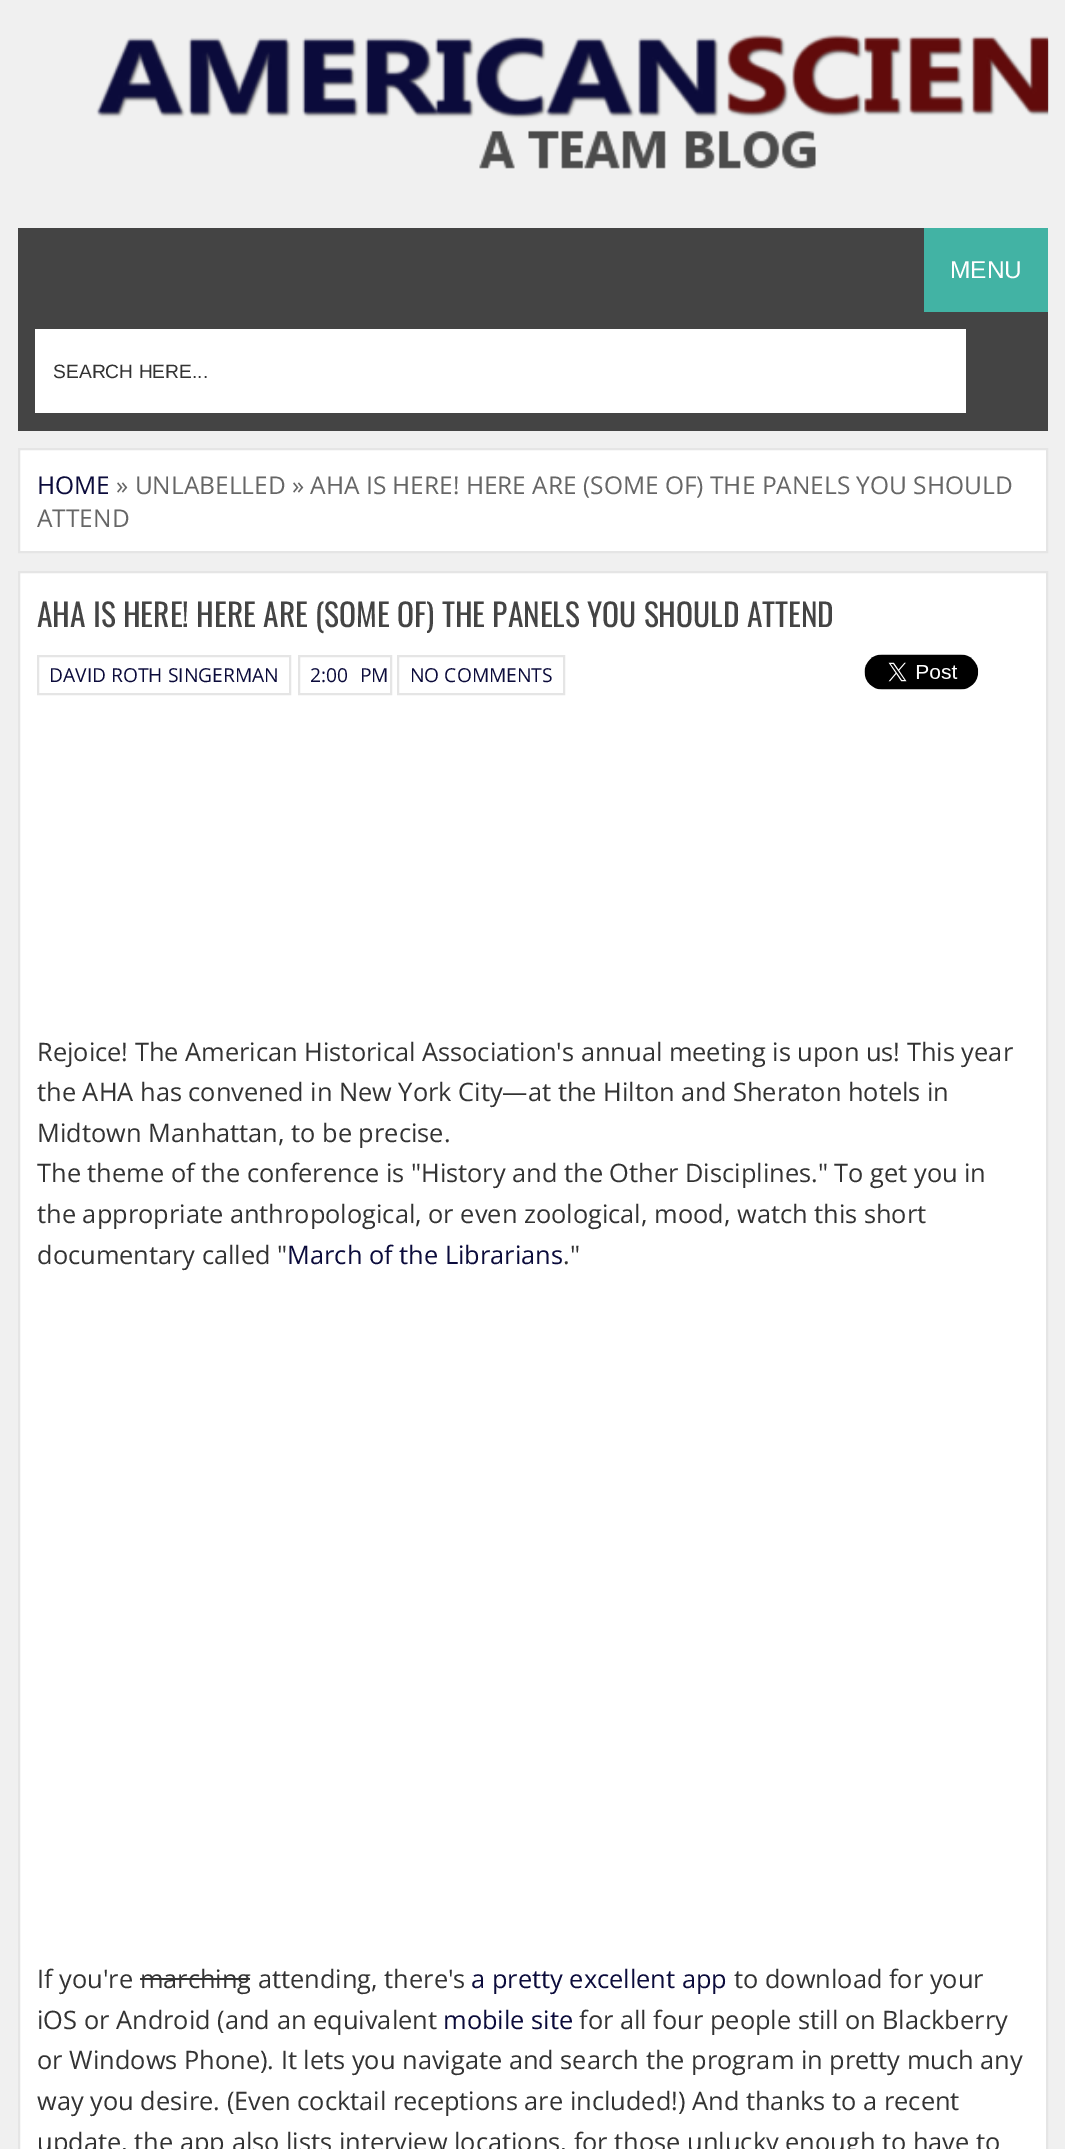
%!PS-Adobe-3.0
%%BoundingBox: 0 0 1065 2149
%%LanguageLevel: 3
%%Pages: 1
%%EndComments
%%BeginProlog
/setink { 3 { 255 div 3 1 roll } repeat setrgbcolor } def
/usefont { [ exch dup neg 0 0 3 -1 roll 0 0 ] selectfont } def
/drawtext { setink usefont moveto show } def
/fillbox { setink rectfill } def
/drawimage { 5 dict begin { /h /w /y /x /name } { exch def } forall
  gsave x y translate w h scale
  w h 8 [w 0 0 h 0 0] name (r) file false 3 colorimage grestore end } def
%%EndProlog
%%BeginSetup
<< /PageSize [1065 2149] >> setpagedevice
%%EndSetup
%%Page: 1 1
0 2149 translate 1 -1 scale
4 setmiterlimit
0 0 1065 2149 240 240 240 fillbox
(assets/img1.rgb) 96 34 953 135 drawimage
18 228 906 84 68 68 68 fillbox
924 228 124 84 66 179 164 fillbox
(MENU) 950 278 /LiberationSans-Regular 24.5 255 255 255 drawtext
18 312 1030 119 68 68 68 fillbox
35 329 931 84 255 255 255 fillbox
(SEARCH HERE...) 53 378 /LiberationSans-Regular 19.25 51 51 51 drawtext
255 255 255 setink
19 449 moveto 1047 449 lineto 1047 552 lineto 19 552 lineto closepath gsave fill grestore
229 229 229 setink
2 setlinewidth
stroke
(HOME) 37 494 /OpenSans-Regular 24.5 11 11 59 drawtext
(» UNLABELLED » AHA IS HERE! HERE ARE \(SOME OF\) THE PANELS YOU SHOULD) 116 494 /OpenSans-Regular 24.5 102 102 102 drawtext
(ATTEND) 37 527 /OpenSans-Regular 24.5 102 102 102 drawtext
255 255 255 setink
19 572 moveto 1047 572 lineto 1047 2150 lineto 19 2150 lineto closepath gsave fill grestore
229 229 229 setink
stroke
(AHA IS HERE! HERE ARE \(SOME OF\) THE PANELS YOU SHOULD ATTEND) 37 627 /Oswald-Regular 31.5 68 68 68 drawtext
229 229 229 setink
38 656 252 38 rectstroke
(DAVID ROTH SINGERMAN) 49 682 /OpenSans-Regular 19.25 11 11 59 drawtext
229 229 229 setink
299 656 92 38 rectstroke
(2:00 PM) 310 682 /OpenSans-Regular 19.25 11 11 59 drawtext
229 229 229 setink
398 656 166 38 rectstroke
(NO COMMENTS) 410 682 /OpenSans-Regular 19.25 11 11 59 drawtext
(assets/img2.rgb) 864 654 115 36 drawimage
(Rejoice! The American Historical Association's annual meeting is upon us! This year) 37 1061 /OpenSans-Regular 25.4 51 51 51 drawtext
(the AHA has convened in New York City—at the Hilton and Sheraton hotels in) 37 1101 /OpenSans-Regular 25.4 51 51 51 drawtext
(Midtown Manhattan, to be precise.) 37 1142 /OpenSans-Regular 25.4 51 51 51 drawtext
(The theme of the conference is "History and the Other Disciplines." To get you in) 37 1182 /OpenSans-Regular 25.4 51 51 51 drawtext
(the appropriate anthropological, or even zoological, mood, watch this short) 37 1223 /OpenSans-Regular 25.4 51 51 51 drawtext
(documentary called ") 37 1264 /OpenSans-Regular 25.4 51 51 51 drawtext
(March of the Librarians) 287 1264 /OpenSans-Regular 25.4 11 11 59 drawtext
(.") 563 1264 /OpenSans-Regular 25.4 51 51 51 drawtext
(If you're marching attending, there's) 37 1988 /OpenSans-Regular 25.4 51 51 51 drawtext
(a pretty excellent app) 471 1988 /OpenSans-Regular 25.4 11 11 59 drawtext
(to download for your) 734 1988 /OpenSans-Regular 25.4 51 51 51 drawtext
140 1978 110 2 51 51 51 fillbox
(iOS or Android \(and an equivalent) 37 2029 /OpenSans-Regular 25.4 51 51 51 drawtext
(mobile site) 443 2029 /OpenSans-Regular 25.4 11 11 59 drawtext
(for all four people still on Blackberry) 579 2029 /OpenSans-Regular 25.4 51 51 51 drawtext
(or Windows Phone\). It lets you navigate and search the program in pretty much any) 37 2069 /OpenSans-Regular 25.4 51 51 51 drawtext
(way you desire. \(Even cocktail receptions are included!\) And thanks to a recent) 37 2110 /OpenSans-Regular 25.4 51 51 51 drawtext
(update, the app also lists interview locations, for those unlucky enough to have to) 37 2151 /OpenSans-Regular 25.4 51 51 51 drawtext
showpage
%%EOF
